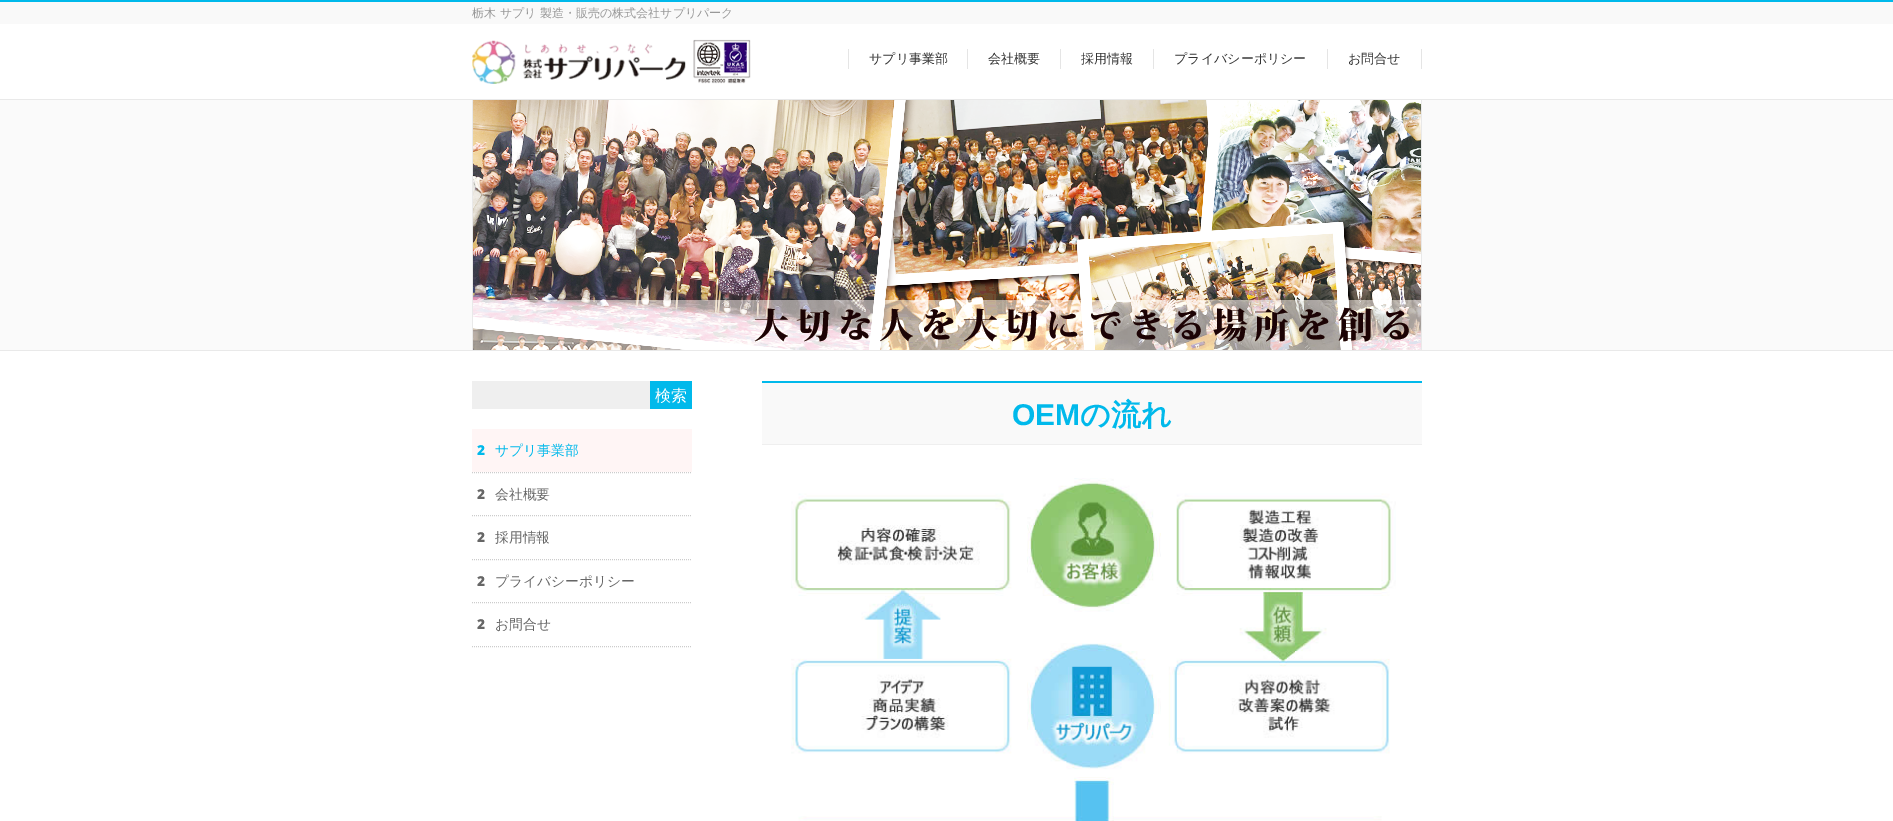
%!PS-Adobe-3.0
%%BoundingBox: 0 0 1893 821
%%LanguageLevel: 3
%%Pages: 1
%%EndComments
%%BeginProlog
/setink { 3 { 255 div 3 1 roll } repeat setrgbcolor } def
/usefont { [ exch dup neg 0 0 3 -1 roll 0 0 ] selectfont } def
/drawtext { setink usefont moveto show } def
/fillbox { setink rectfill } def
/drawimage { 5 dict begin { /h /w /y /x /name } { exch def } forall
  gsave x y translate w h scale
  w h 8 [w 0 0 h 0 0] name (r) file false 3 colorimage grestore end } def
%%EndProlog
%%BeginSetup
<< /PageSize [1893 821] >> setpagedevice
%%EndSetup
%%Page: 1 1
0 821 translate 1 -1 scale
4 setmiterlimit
0 0 1893 821 255 255 255 fillbox
0 2 1893 22 249 249 249 fillbox
0 0 1893 2 0 185 235 fillbox
(栃木 サプリ 製造・販売の株式会社サプリパーク) 472 17 /WenQuanYiZenHei-Medium 12 153 153 153 drawtext
(assets/img1.rgb) 472 39 279 45 drawimage
967 49 1 20 229 229 229 fillbox
848 49 1 20 229 229 229 fillbox
(サプリ事業部) 869 63 /WenQuanYiZenHei-Medium 13 51 51 51 drawtext
1060 49 1 20 229 229 229 fillbox
(会社概要) 988 63 /WenQuanYiZenHei-Medium 13 51 51 51 drawtext
1153 49 1 20 229 229 229 fillbox
(採用情報) 1081 63 /WenQuanYiZenHei-Medium 13 51 51 51 drawtext
1327 49 1 20 229 229 229 fillbox
(プライバシーポリシー) 1174 63 /WenQuanYiZenHei-Medium 13 51 51 51 drawtext
1421 49 1 20 229 229 229 fillbox
(お問合せ) 1348 63 /WenQuanYiZenHei-Medium 13 51 51 51 drawtext
0 100 1893 250 250 250 250 fillbox
0 99 1893 1 233 233 233 fillbox
1421 100 1 250 233 233 233 fillbox
472 100 1 250 233 233 233 fillbox
(assets/img2.rgb) 473 100 948 250 drawimage
0 350 1893 1 233 233 233 fillbox
472 381 178 28 239 239 239 fillbox
650 381 42 28 0 185 235 fillbox
(検索) 655 401 /WenQuanYiZenHei-Medium 16 255 255 255 drawtext
204 204 204 setink
[1 1] 0 setdash
472 472.5 moveto 692 472.5 lineto stroke
472 429 220 43 255 245 245 fillbox
(2) 477 455 /NotoSans-Black 13.75 0 185 235 drawtext
(サプリ事業部) 495 455 /WenQuanYiZenHei-Medium 13.75 0 185 235 drawtext
204 204 204 setink
472 515.5 moveto 692 515.5 lineto stroke
(2) 477 499 /NotoSans-Black 13.75 102 102 102 drawtext
(会社概要) 495 499 /WenQuanYiZenHei-Medium 13.75 102 102 102 drawtext
204 204 204 setink
472 559.5 moveto 692 559.5 lineto stroke
(2) 477 542 /NotoSans-Black 13.75 102 102 102 drawtext
(採用情報) 495 542 /WenQuanYiZenHei-Medium 13.75 102 102 102 drawtext
204 204 204 setink
472 602.5 moveto 692 602.5 lineto stroke
(2) 477 586 /NotoSans-Black 13.75 102 102 102 drawtext
(プライバシーポリシー) 495 586 /WenQuanYiZenHei-Medium 13.75 102 102 102 drawtext
204 204 204 setink
472 646.5 moveto 692 646.5 lineto stroke
(2) 477 629 /NotoSans-Black 13.75 102 102 102 drawtext
(お問合せ) 495 629 /WenQuanYiZenHei-Medium 13.75 102 102 102 drawtext
762 383 660 61 249 249 249 fillbox
762 381 660 2 0 185 235 fillbox
762 444 660 1 239 239 239 fillbox
(OEM) 1012 425 /LiberationSans-Bold 30 0 185 235 drawtext
(の流れ) 1080 425 /WenQuanYiZenHei-Bold 30 0 185 235 drawtext
(assets/img3.rgb) 791 478 605 343 drawimage
showpage
%%EOF
